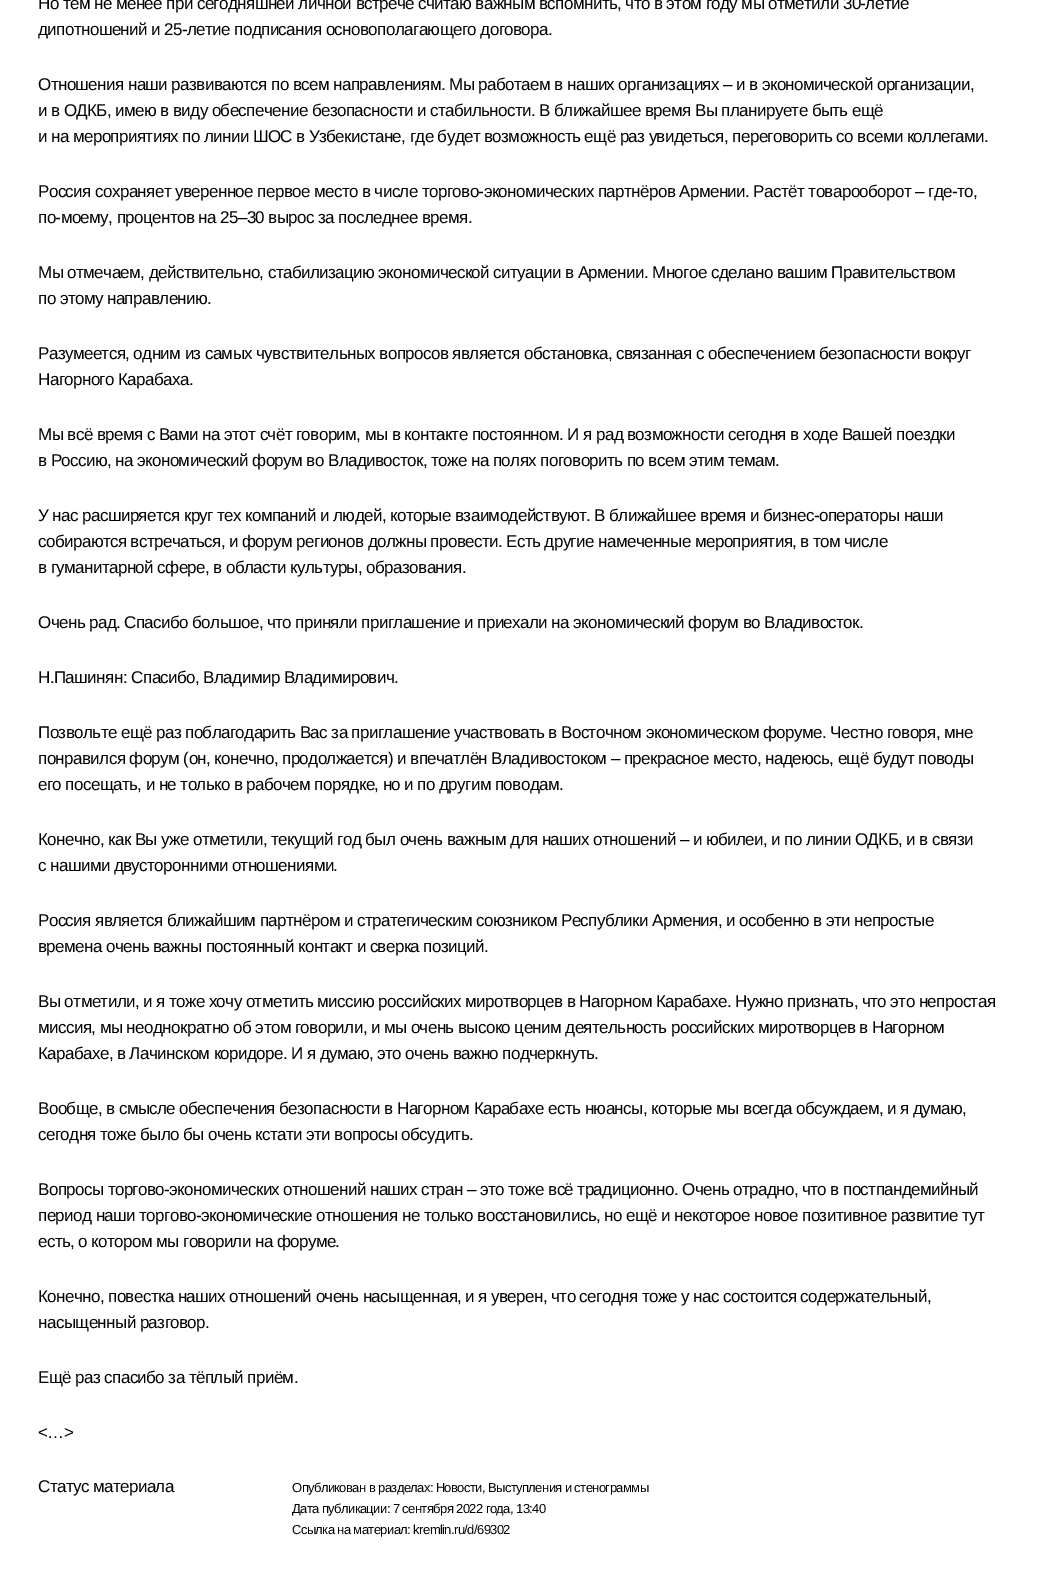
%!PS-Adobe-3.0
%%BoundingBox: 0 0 1038 1573
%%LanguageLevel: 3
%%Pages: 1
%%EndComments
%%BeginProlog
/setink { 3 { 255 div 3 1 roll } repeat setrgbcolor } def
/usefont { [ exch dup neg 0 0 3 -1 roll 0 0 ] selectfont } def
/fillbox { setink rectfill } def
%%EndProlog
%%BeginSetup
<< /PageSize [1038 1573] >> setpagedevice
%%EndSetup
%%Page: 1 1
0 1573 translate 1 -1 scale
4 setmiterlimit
0 0 1038 1573 255 255 255 fillbox
/LiberationSans-Regular 17 usefont
0 0 0 setink
38 9 moveto -0.6 0 (Но тем не менее при сегодняшней личной встрече считаю важным вспомнить, что в этом году мы отметили 30-летие) ashow
38 35 moveto -0.6 0 (дипотношений и 25-летие подписания основополагающего договора.) ashow
38 90 moveto -0.6 0 (Отношения наши развиваются по всем направлениям. Мы работаем в наших организациях – и в экономической организации,) ashow
38 116 moveto -0.6 0 (и в ОДКБ, имею в виду обеспечение безопасности и стабильности. В ближайшее время Вы планируете быть ещё) ashow
38 142 moveto -0.6 0 (и на мероприятиях по линии ШОС в Узбекистане, где будет возможность ещё раз увидеться, переговорить со всеми коллегами.) ashow
38 197 moveto -0.6 0 (Россия сохраняет уверенное первое место в числе торгово-экономических партнёров Армении. Растёт товарооборот – где-то,) ashow
38 223 moveto -0.6 0 (по-моему, процентов на 25–30 вырос за последнее время.) ashow
38 278 moveto -0.6 0 (Мы отмечаем, действительно, стабилизацию экономической ситуации в Армении. Многое сделано вашим Правительством) ashow
38 304 moveto -0.6 0 (по этому направлению.) ashow
38 359 moveto -0.6 0 (Разумеется, одним из самых чувствительных вопросов является обстановка, связанная с обеспечением безопасности вокруг) ashow
38 385 moveto -0.6 0 (Нагорного Карабаха.) ashow
38 440 moveto -0.6 0 (Мы всё время с Вами на этот счёт говорим, мы в контакте постоянном. И я рад возможности сегодня в ходе Вашей поездки) ashow
38 466 moveto -0.6 0 (в Россию, на экономический форум во Владивосток, тоже на полях поговорить по всем этим темам.) ashow
38 521 moveto -0.6 0 (У нас расширяется круг тех компаний и людей, которые взаимодействуют. В ближайшее время и бизнес-операторы наши) ashow
38 547 moveto -0.6 0 (собираются встречаться, и форум регионов должны провести. Есть другие намеченные мероприятия, в том числе) ashow
38 573 moveto -0.6 0 (в гуманитарной сфере, в области культуры, образования.) ashow
38 628 moveto -0.6 0 (Очень рад. Спасибо большое, что приняли приглашение и приехали на экономический форум во Владивосток.) ashow
38 683 moveto -0.6 0 (Н.Пашинян) ashow
123 683 moveto -0.6 0 (: Спасибо, Владимир Владимирович.) ashow
38 738 moveto -0.6 0 (Позвольте ещё раз поблагодарить Вас за приглашение участвовать в Восточном экономическом форуме. Честно говоря, мне) ashow
38 764 moveto -0.6 0 (понравился форум \(он, конечно, продолжается\) и впечатлён Владивостоком – прекрасное место, надеюсь, ещё будут поводы) ashow
38 790 moveto -0.6 0 (его посещать, и не только в рабочем порядке, но и по другим поводам.) ashow
38 845 moveto -0.6 0 (Конечно, как Вы уже отметили, текущий год был очень важным для наших отношений – и юбилеи, и по линии ОДКБ, и в связи) ashow
38 871 moveto -0.6 0 (с нашими двусторонними отношениями.) ashow
38 926 moveto -0.6 0 (Россия является ближайшим партнёром и стратегическим союзником Республики Армения, и особенно в эти непростые) ashow
38 952 moveto -0.6 0 (времена очень важны постоянный контакт и сверка позиций.) ashow
38 1007 moveto -0.6 0 (Вы отметили, и я тоже хочу отметить миссию российских миротворцев в Нагорном Карабахе. Нужно признать, что это непростая) ashow
38 1033 moveto -0.6 0 (миссия, мы неоднократно об этом говорили, и мы очень высоко ценим деятельность российских миротворцев в Нагорном) ashow
38 1059 moveto -0.6 0 (Карабахе, в Лачинском коридоре. И я думаю, это очень важно подчеркнуть.) ashow
38 1114 moveto -0.6 0 (Вообще, в смысле обеспечения безопасности в Нагорном Карабахе есть нюансы, которые мы всегда обсуждаем, и я думаю,) ashow
38 1140 moveto -0.6 0 (сегодня тоже было бы очень кстати эти вопросы обсудить.) ashow
38 1195 moveto -0.6 0 (Вопросы торгово-экономических отношений наших стран – это тоже всё традиционно. Очень отрадно, что в постпандемийный) ashow
38 1221 moveto -0.6 0 (период наши торгово-экономические отношения не только восстановились, но ещё и некоторое новое позитивное развитие тут) ashow
38 1247 moveto -0.6 0 (есть, о котором мы говорили на форуме.) ashow
38 1302 moveto -0.6 0 (Конечно, повестка наших отношений очень насыщенная, и я уверен, что сегодня тоже у нас состоится содержательный,) ashow
38 1328 moveto -0.6 0 (насыщенный разговор.) ashow
38 1383 moveto -0.6 0 (Ещё раз спасибо за тёплый приём.) ashow
38 1438 moveto -0.6 0 (<…>) ashow
38 1492 moveto -0.6 0 (Статус материала) ashow
/LiberationSans-Regular 13 usefont
292 1492 moveto -0.6 0 (Опубликован в разделах: Новости, Выступления и стенограммы) ashow
292 1513 moveto -0.6 0 (Дата публикации: 7 сентября 2022 года, 13:40) ashow
292 1534 moveto -0.6 0 (Ссылка на материал: kremlin.ru/d/69302) ashow
showpage
%%EOF
